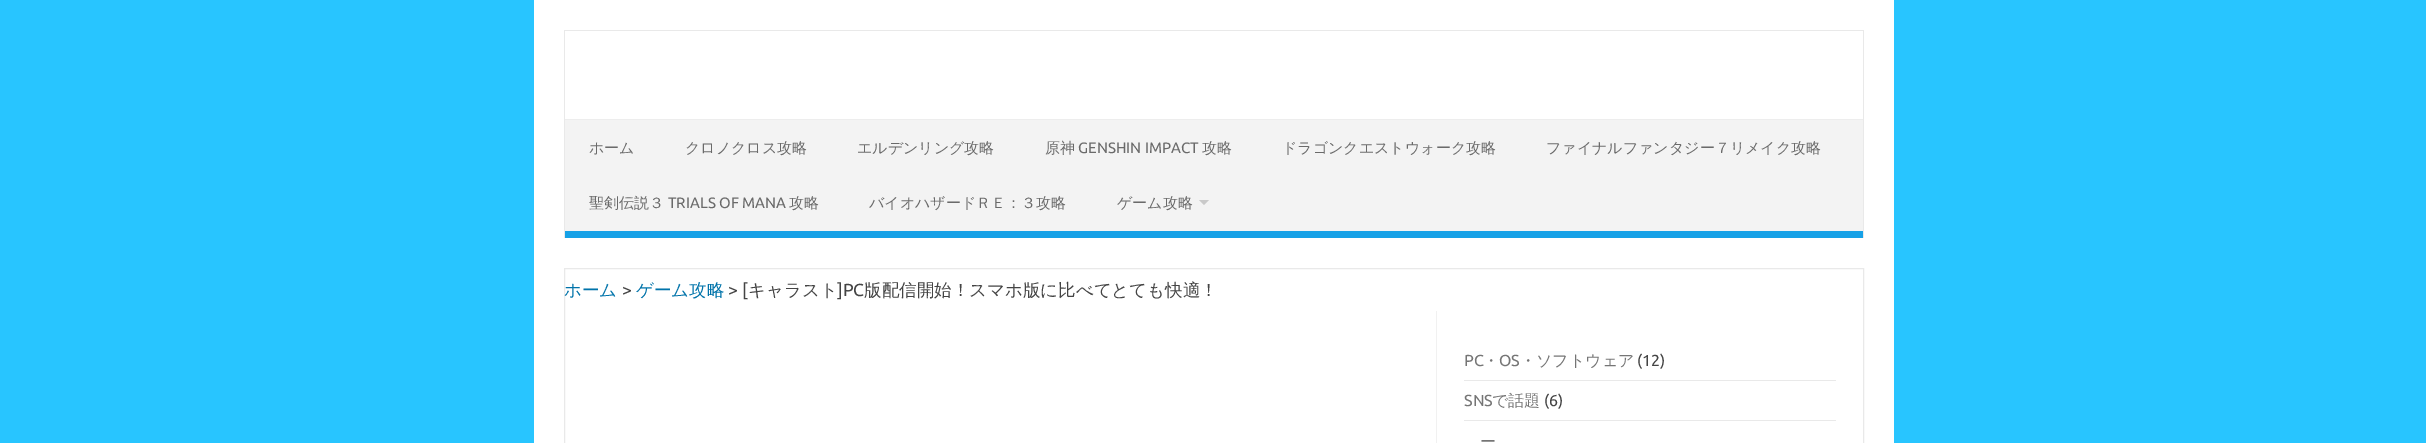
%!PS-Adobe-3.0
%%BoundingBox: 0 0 2426 443
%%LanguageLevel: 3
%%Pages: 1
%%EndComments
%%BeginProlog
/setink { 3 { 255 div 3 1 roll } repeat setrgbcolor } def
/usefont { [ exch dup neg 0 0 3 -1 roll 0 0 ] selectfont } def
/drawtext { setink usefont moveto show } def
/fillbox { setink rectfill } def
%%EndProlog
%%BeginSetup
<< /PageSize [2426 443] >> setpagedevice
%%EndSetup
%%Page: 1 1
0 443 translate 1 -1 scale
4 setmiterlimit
0 0 2426 443 40 197 255 fillbox
534 0 1360 443 255 255 255 fillbox
564 30 1300 1 233 233 233 fillbox
1863 30 1 208 233 233 233 fillbox
564 30 1 208 233 233 233 fillbox
565 120 1298 111 243 243 243 fillbox
565 119 1298 1 237 237 237 fillbox
565 231 1298 7 22 161 231 fillbox
(ホーム) 589 153 /WenQuanYiZenHei-Medium 15 106 106 106 drawtext
(クロノクロス攻略) 685 153 /WenQuanYiZenHei-Medium 15 106 106 106 drawtext
(エルデンリング攻略) 857 153 /WenQuanYiZenHei-Medium 15 106 106 106 drawtext
(原神) 1045 153 /WenQuanYiZenHei-Medium 15 106 106 106 drawtext
(GENSHIN IMPACT) 1078 153 /Ubuntu-Regular 15 106 106 106 drawtext
(攻略) 1202 153 /WenQuanYiZenHei-Medium 15 106 106 106 drawtext
(ドラゴンクエストウォーク攻略) 1282 153 /WenQuanYiZenHei-Medium 15 106 106 106 drawtext
(ファイナルファンタジー７リメイク攻略) 1546 153 /WenQuanYiZenHei-Medium 15 106 106 106 drawtext
(聖剣伝説３) 589 208 /WenQuanYiZenHei-Medium 15 106 106 106 drawtext
(TRIALS OF MANA) 668 208 /Ubuntu-Regular 15 106 106 106 drawtext
(攻略) 789 208 /WenQuanYiZenHei-Medium 15 106 106 106 drawtext
(バイオハザードＲＥ：３攻略) 869 208 /WenQuanYiZenHei-Medium 15 106 106 106 drawtext
(ゲーム攻略) 1117 208 /WenQuanYiZenHei-Medium 15 106 106 106 drawtext
201 201 201 setink
1199 200 moveto 1209 200 lineto 1204 205 lineto closepath fill
233 233 233 setink
564.5 268.5 1299 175 rectstroke
(ホーム) 564 296 /WenQuanYiZenHei-Medium 17.5 0 115 170 drawtext
(>) 622 296 /Ubuntu-Regular 17.5 68 68 68 drawtext
(ゲーム攻略) 636 296 /WenQuanYiZenHei-Medium 17.5 0 115 170 drawtext
(> [) 728 296 /Ubuntu-Regular 17.5 68 68 68 drawtext
(キャラスト) 748 296 /WenQuanYiZenHei-Medium 17.5 68 68 68 drawtext
(]PC) 837 296 /Ubuntu-Regular 17.5 68 68 68 drawtext
(版配信開始！スマホ版に比べてとても快適！) 864 296 /WenQuanYiZenHei-Medium 17.5 68 68 68 drawtext
1436 311 1 132 241 241 241 fillbox
1464 380 372 1 233 233 233 fillbox
(PC) 1464 366 /Ubuntu-Regular 16 117 117 117 drawtext
(・) 1483 366 /WenQuanYiZenHei-Medium 16 117 117 117 drawtext
(OS) 1499 366 /Ubuntu-Regular 16 117 117 117 drawtext
(・ソフトウェア) 1520 366 /WenQuanYiZenHei-Medium 16 117 117 117 drawtext
(\(12\)) 1637 366 /Ubuntu-Regular 16 68 68 68 drawtext
1464 420 372 1 233 233 233 fillbox
(SNS) 1464 406 /Ubuntu-Regular 16 117 117 117 drawtext
(で話題) 1492 406 /WenQuanYiZenHei-Medium 16 117 117 117 drawtext
(\(6\)) 1544 406 /Ubuntu-Regular 16 68 68 68 drawtext
(ー) 1480 447 /WenQuanYiZenHei-Medium 16 117 117 117 drawtext
showpage
%%EOF
